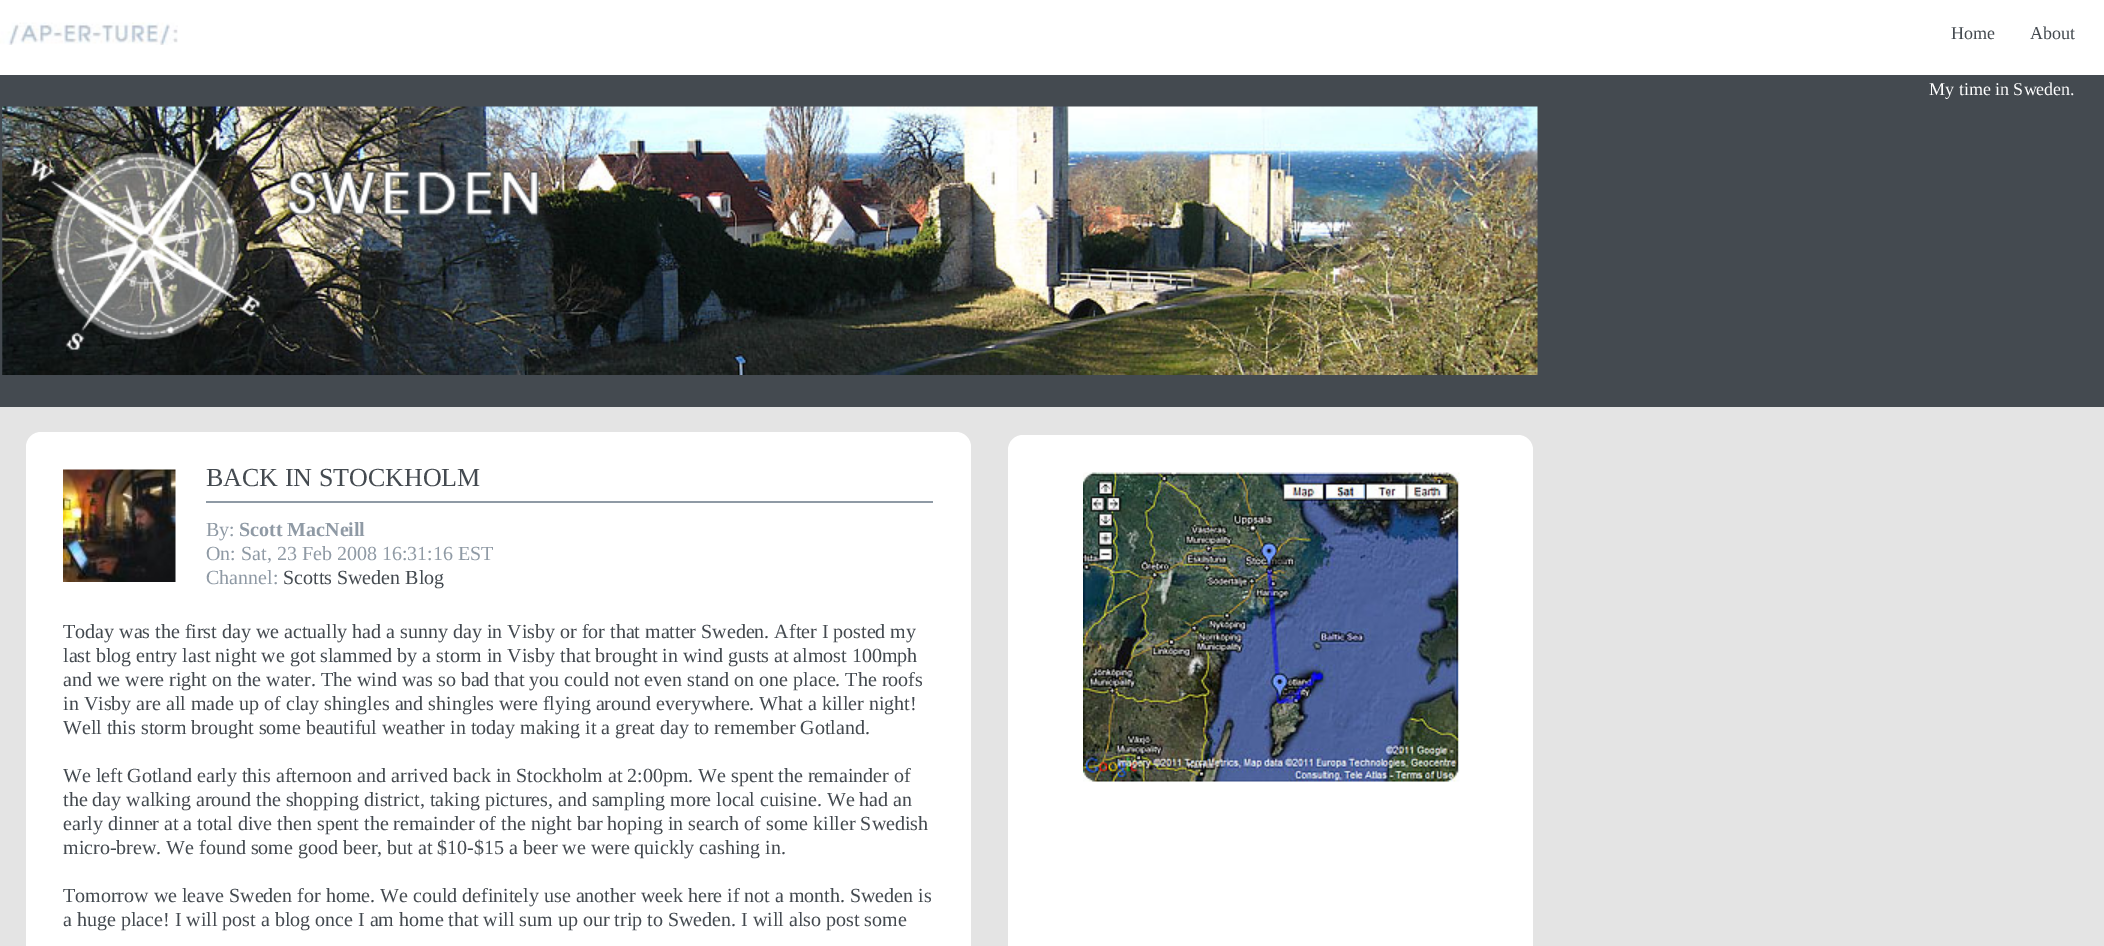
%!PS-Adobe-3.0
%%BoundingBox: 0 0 2104 946
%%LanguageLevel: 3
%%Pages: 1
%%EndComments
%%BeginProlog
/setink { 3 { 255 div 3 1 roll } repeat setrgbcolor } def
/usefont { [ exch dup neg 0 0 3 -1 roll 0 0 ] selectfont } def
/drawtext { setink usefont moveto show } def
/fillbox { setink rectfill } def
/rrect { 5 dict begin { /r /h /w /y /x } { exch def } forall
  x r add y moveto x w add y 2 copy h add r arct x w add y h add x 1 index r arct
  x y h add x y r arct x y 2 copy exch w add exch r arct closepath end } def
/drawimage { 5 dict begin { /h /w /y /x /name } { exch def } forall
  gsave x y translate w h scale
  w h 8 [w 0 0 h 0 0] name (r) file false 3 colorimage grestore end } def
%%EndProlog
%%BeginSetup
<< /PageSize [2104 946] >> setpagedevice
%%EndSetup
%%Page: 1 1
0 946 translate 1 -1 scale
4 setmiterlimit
0 0 2104 946 255 255 255 fillbox
2 77 2101 328 68 74 80 fillbox
(assets/img1.rgb) 2 106 1536 269 drawimage
2 setlinewidth
1 76 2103 330 rectstroke
(assets/img2.rgb) 0 22 178 23 drawimage
(Home) 1951 39 /LiberationSerif-Regular 18 68 74 80 drawtext
(About) 2030 39 /LiberationSerif-Regular 18 68 74 80 drawtext
(My time in Sweden.) 1929 95 /LiberationSerif-Regular 18 255 255 255 drawtext
(assets/img3.rgb) 31 127 508 223 drawimage
0 407 2104 539 228 228 228 fillbox
255 255 255 setink
26 432 945 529 15 rrect fill
(assets/img4.rgb) 63 469 113 113 drawimage
206 501 727 2 143 154 165 fillbox
(BACK IN STOCKHOLM) 206 486 /LiberationSerif-Regular 26 68 74 80 drawtext
(By:) 206 536 /LiberationSerif-Regular 20 143 154 165 drawtext
(Scott MacNeill) 239 536 /LiberationSerif-Bold 20 143 154 165 drawtext
(On: Sat, 23 Feb 2008 16:31:16 EST) 206 560 /LiberationSerif-Regular 20 143 154 165 drawtext
(Channel:) 206 584 /LiberationSerif-Regular 20 143 154 165 drawtext
(Scotts Sweden Blog) 283 584 /LiberationSerif-Regular 20 68 74 80 drawtext
(Today was the first day we actually had a sunny day in Visby or for that matter Sweden. After I posted my) 63 638 /LiberationSerif-Regular 20 68 74 80 drawtext
(last blog entry last night we got slammed by a storm in Visby that brought in wind gusts at almost 100mph) 63 662 /LiberationSerif-Regular 20 68 74 80 drawtext
(and we were right on the water. The wind was so bad that you could not even stand on one place. The roofs) 63 686 /LiberationSerif-Regular 20 68 74 80 drawtext
(in Visby are all made up of clay shingles and shingles were flying around everywhere. What a killer night!) 63 710 /LiberationSerif-Regular 20 68 74 80 drawtext
(Well this storm brought some beautiful weather in today making it a great day to remember Gotland.) 63 734 /LiberationSerif-Regular 20 68 74 80 drawtext
(We left Gotland early this afternoon and arrived back in Stockholm at 2:00pm. We spent the remainder of) 63 782 /LiberationSerif-Regular 20 68 74 80 drawtext
(the day walking around the shopping district, taking pictures, and sampling more local cuisine. We had an) 63 806 /LiberationSerif-Regular 20 68 74 80 drawtext
(early dinner at a total dive then spent the remainder of the night bar hoping in search of some killer Swedish) 63 830 /LiberationSerif-Regular 20 68 74 80 drawtext
(micro-brew. We found some good beer, but at $10-$15 a beer we were quickly cashing in.) 63 854 /LiberationSerif-Regular 20 68 74 80 drawtext
(Tomorrow we leave Sweden for home. We could definitely use another week here if not a month. Sweden is) 63 902 /LiberationSerif-Regular 20 68 74 80 drawtext
(a huge place! I will post a blog once I am home that will sum up our trip to Sweden. I will also post some) 63 926 /LiberationSerif-Regular 20 68 74 80 drawtext
255 255 255 setink
1008 435 525 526 15 rrect fill
(assets/img5.rgb) 1083 472 377 310 drawimage
showpage
%%EOF
